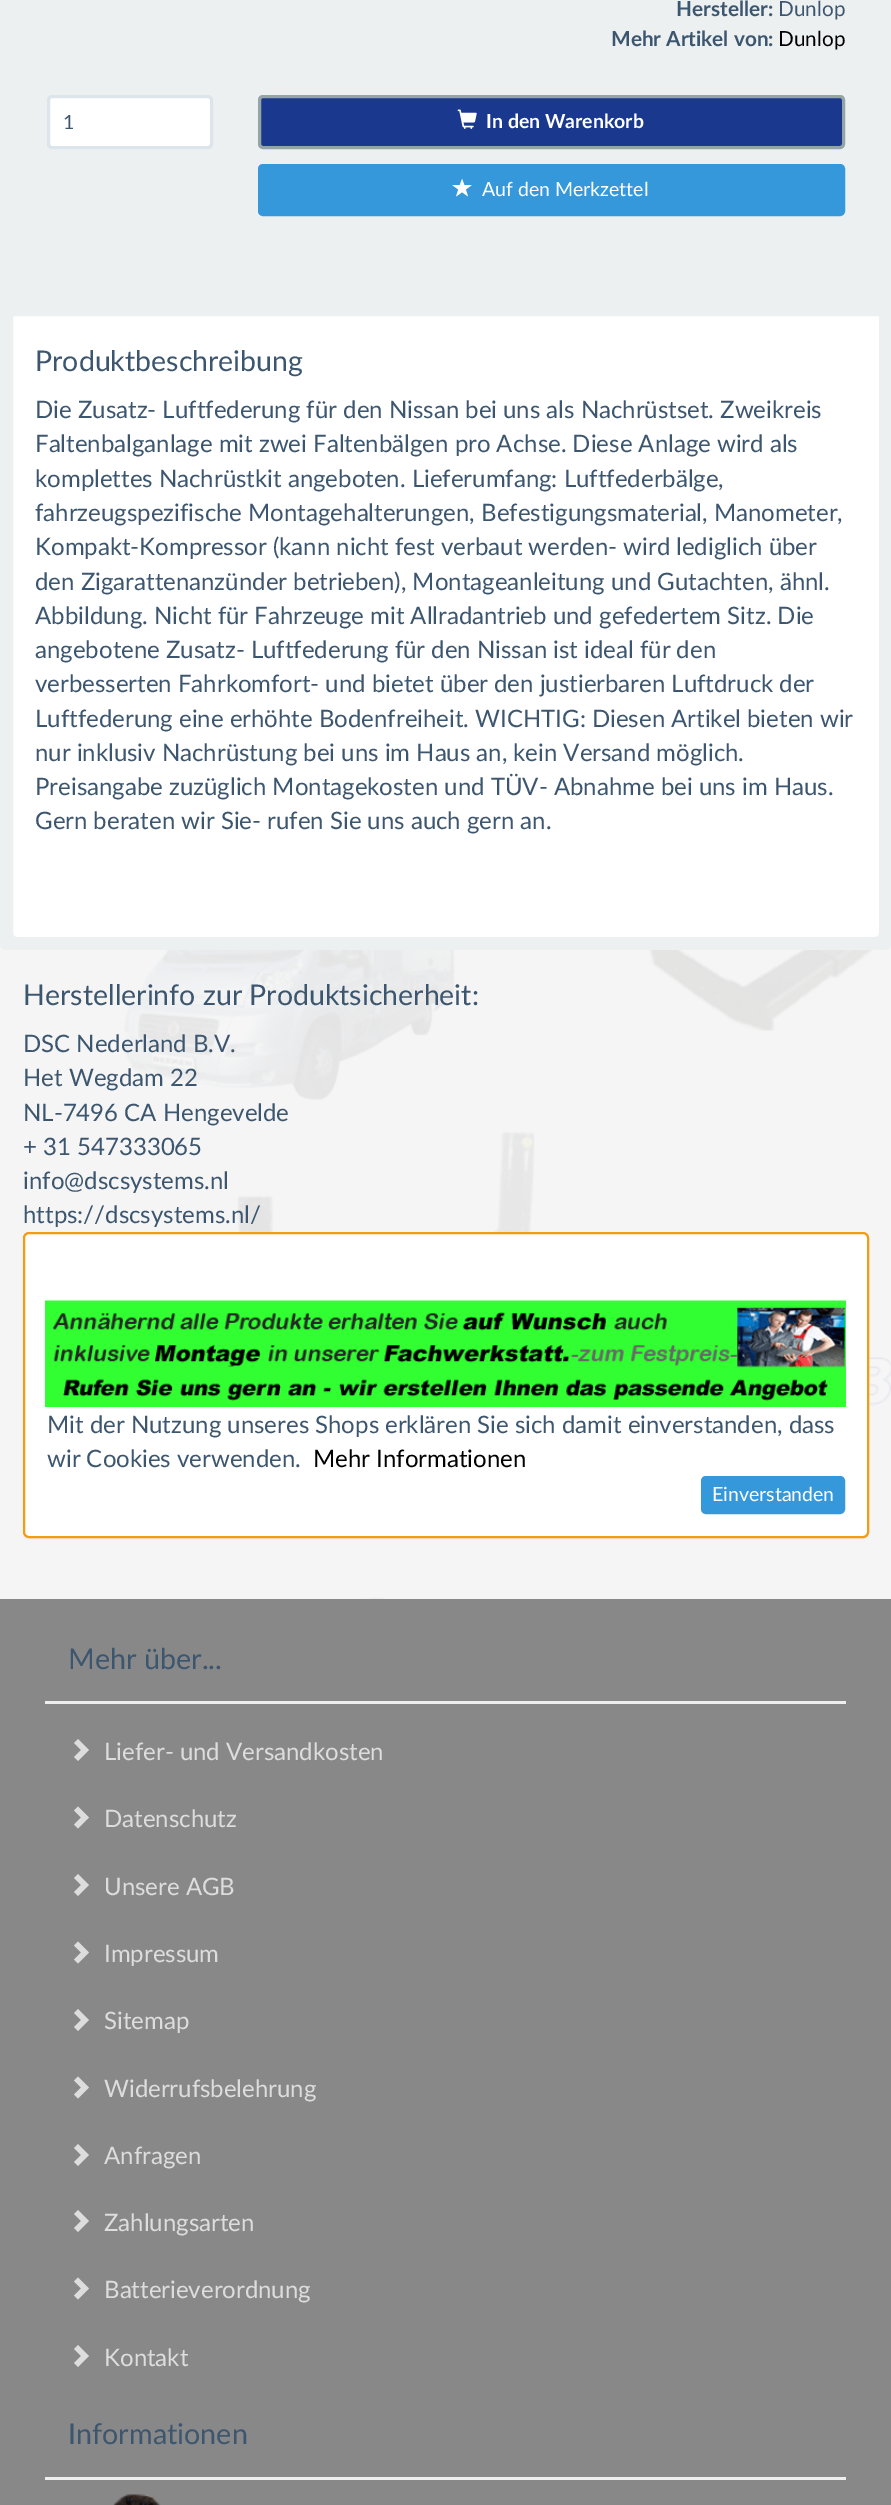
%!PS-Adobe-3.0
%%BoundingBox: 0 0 891 2505
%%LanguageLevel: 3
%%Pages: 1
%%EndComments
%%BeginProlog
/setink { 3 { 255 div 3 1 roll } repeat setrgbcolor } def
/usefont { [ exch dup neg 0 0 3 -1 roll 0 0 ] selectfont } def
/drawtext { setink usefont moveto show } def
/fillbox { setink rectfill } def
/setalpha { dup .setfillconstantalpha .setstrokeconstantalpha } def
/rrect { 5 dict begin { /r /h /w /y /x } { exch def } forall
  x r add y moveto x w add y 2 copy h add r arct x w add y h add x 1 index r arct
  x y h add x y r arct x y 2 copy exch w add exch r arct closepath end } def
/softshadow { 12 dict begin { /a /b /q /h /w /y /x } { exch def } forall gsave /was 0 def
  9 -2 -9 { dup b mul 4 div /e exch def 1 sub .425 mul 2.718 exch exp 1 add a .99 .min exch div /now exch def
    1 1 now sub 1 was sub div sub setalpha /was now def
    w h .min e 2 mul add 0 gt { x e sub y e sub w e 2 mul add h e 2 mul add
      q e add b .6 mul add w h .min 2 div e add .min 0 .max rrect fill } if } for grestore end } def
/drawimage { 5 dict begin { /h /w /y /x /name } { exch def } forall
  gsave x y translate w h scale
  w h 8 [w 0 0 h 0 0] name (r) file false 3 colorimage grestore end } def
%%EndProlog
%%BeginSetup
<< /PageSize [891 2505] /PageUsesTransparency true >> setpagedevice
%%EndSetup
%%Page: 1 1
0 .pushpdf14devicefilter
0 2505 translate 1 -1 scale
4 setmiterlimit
0 0 891 2505 255 255 255 fillbox
(assets/img1.rgb) 0 944 891 655 drawimage
236 240 241 setink
0 -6 891 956 6 rrect fill
(Hersteller:) 676 16 /Lato-Bold 20.75 61 86 111 drawtext
(Dunlop) 778 16 /Lato-Regular 20.75 61 86 111 drawtext
(Mehr Artikel von:) 611 46 /Lato-Bold 20.75 61 86 111 drawtext
(Dunlop) 778 46 /Lato-Regular 20.75 0 0 0 drawtext
255 255 255 setink
48.5 96.5 163 51 3.5 rrect gsave fill grestore
220 228 236 setink
3 setlinewidth
stroke
(1) 63 129 /Lato-Regular 19.5 61 86 111 drawtext
26 56 142 setink
259.5 96.5 584 51 3.5 rrect gsave fill grestore
149 165 166 setink
stroke
(assets/img2.rgb) 457 109 20 20 drawimage
(In den Warenkorb) 486 128 /Lato-Bold 19.5 255 255 255 drawtext
52 152 219 setink
259.5 165.5 584 49 3.5 rrect gsave fill grestore
stroke
(assets/img3.rgb) 452 179 20 18 drawimage
(Auf den Merkzettel) 482 196 /Lato-Regular 19.5 255 255 255 drawtext
12 315 moveto 880 315 lineto 880 933 lineto 880 936 878 938 875 938 curveto 17 938 lineto 14 938 12 936 12 933 curveto closepath gsave fill grestore
236 240 241 setink
2 setlinewidth
stroke
(Produktbeschreibung) 35 371 /Lato-Regular 28.5 61 86 111 drawtext
(Die Zusatz- Luftfederung für den Nissan bei uns als Nachrüstset. Zweikreis) 35 418 /Lato-Regular 24 61 86 111 drawtext
(Faltenbalganlage mit zwei Faltenbälgen pro Achse. Diese Anlage wird als) 35 452 /Lato-Regular 24 61 86 111 drawtext
(komplettes Nachrüstkit angeboten. Lieferumfang: Luftfederbälge,) 35 487 /Lato-Regular 24 61 86 111 drawtext
(fahrzeugspezifische Montagehalterungen, Befestigungsmaterial, Manometer,) 35 521 /Lato-Regular 24 61 86 111 drawtext
(Kompakt-Kompressor \(kann nicht fest verbaut werden- wird lediglich über) 35 555 /Lato-Regular 24 61 86 111 drawtext
(den Zigarattenanzünder betrieben\), Montageanleitung und Gutachten, ähnl.) 35 590 /Lato-Regular 24 61 86 111 drawtext
(Abbildung. Nicht für Fahrzeuge mit Allradantrieb und gefedertem Sitz. Die) 35 624 /Lato-Regular 24 61 86 111 drawtext
(angebotene Zusatz- Luftfederung für den Nissan ist ideal für den) 35 658 /Lato-Regular 24 61 86 111 drawtext
(verbesserten Fahrkomfort- und bietet über den justierbaren Luftdruck der) 35 692 /Lato-Regular 24 61 86 111 drawtext
(Luftfederung eine erhöhte Bodenfreiheit. WICHTIG: Diesen Artikel bieten wir) 35 727 /Lato-Regular 24 61 86 111 drawtext
(nur inklusiv Nachrüstung bei uns im Haus an, kein Versand möglich.) 35 761 /Lato-Regular 24 61 86 111 drawtext
(Preisangabe zuzüglich Montagekosten und TÜV- Abnahme bei uns im Haus.) 35 795 /Lato-Regular 24 61 86 111 drawtext
(Gern beraten wir Sie- rufen Sie uns auch gern an.) 35 829 /Lato-Regular 24 61 86 111 drawtext
(Herstellerinfo zur Produktsicherheit:) 23 1005 /Lato-Regular 28.5 61 86 111 drawtext
(DSC Nederland B.V.) 23 1052 /Lato-Regular 24 61 86 111 drawtext
(Het Wegdam 22) 23 1086 /Lato-Regular 24 61 86 111 drawtext
(NL-7496 CA Hengevelde) 23 1121 /Lato-Regular 24 61 86 111 drawtext
(+ 31 547333065) 23 1155 /Lato-Regular 24 61 86 111 drawtext
(info@dscsystems.nl) 23 1189 /Lato-Regular 24 61 86 111 drawtext
(https://dscsystems.nl/) 23 1223 /Lato-Regular 24 61 86 111 drawtext
0 0 0 setink
23 1233 846 306 6 1 0.05 softshadow
255 255 255 setink
24 1233 844 304 5 rrect gsave fill grestore
243 156 18 setink
stroke
(assets/img4.rgb) 45 1300 801 107 drawimage
(Mit der Nutzung unseres Shops erklären Sie sich damit einverstanden, dass) 47 1433 /Lato-Regular 24 61 86 111 drawtext
(wir Cookies verwenden.) 47 1467 /Lato-Regular 24 61 86 111 drawtext
(Mehr Informationen) 313 1467 /Lato-Regular 24 0 0 0 drawtext
52 152 219 setink
702.5 1477.5 141 35 3.5 rrect gsave fill grestore
3 setlinewidth
stroke
(Einverstanden) 712 1501 /Lato-Regular 19.5 255 255 255 drawtext
0 1599 891 906 136 136 136 fillbox
45 1701 801 3 238 238 238 fillbox
(Mehr über...) 68 1669 /Lato-Regular 28.75 61 86 111 drawtext
221 221 221 setink
89 1750 moveto 78 1761 lineto 74 1757 lineto 81 1750 lineto 74 1743 lineto 78 1739 lineto closepath fill
(Liefer- und Versandkosten) 104 1760 /Lato-Regular 24 221 221 221 drawtext
89 1817.5 moveto 78 1828.5 lineto 74 1824.5 lineto 81 1817.5 lineto 74 1810.5 lineto 78 1806.5 lineto closepath fill
(Datenschutz) 104 1827 /Lato-Regular 24 221 221 221 drawtext
89 1885 moveto 78 1896 lineto 74 1892 lineto 81 1885 lineto 74 1878 lineto 78 1874 lineto closepath fill
(Unsere AGB) 104 1895 /Lato-Regular 24 221 221 221 drawtext
89 1952.5 moveto 78 1963.5 lineto 74 1959.5 lineto 81 1952.5 lineto 74 1945.5 lineto 78 1941.5 lineto closepath fill
(Impressum) 104 1962 /Lato-Regular 24 221 221 221 drawtext
89 2020 moveto 78 2031 lineto 74 2027 lineto 81 2020 lineto 74 2013 lineto 78 2009 lineto closepath fill
(Sitemap) 104 2029 /Lato-Regular 24 221 221 221 drawtext
89 2087.5 moveto 78 2098.5 lineto 74 2094.5 lineto 81 2087.5 lineto 74 2080.5 lineto 78 2076.5 lineto closepath fill
(Widerrufsbelehrung) 104 2097 /Lato-Regular 24 221 221 221 drawtext
89 2155 moveto 78 2166 lineto 74 2162 lineto 81 2155 lineto 74 2148 lineto 78 2144 lineto closepath fill
(Anfragen) 104 2164 /Lato-Regular 24 221 221 221 drawtext
89 2221 moveto 78 2232 lineto 74 2228 lineto 81 2221 lineto 74 2214 lineto 78 2210 lineto closepath fill
(Zahlungsarten) 104 2231 /Lato-Regular 24 221 221 221 drawtext
89 2288.5 moveto 78 2299.5 lineto 74 2295.5 lineto 81 2288.5 lineto 74 2281.5 lineto 78 2277.5 lineto closepath fill
(Batterieverordnung) 104 2298 /Lato-Regular 24 221 221 221 drawtext
89 2356 moveto 78 2367 lineto 74 2363 lineto 81 2356 lineto 74 2349 lineto 78 2345 lineto closepath fill
(Kontakt) 104 2366 /Lato-Regular 24 221 221 221 drawtext
45 2477 801 3 238 238 238 fillbox
(Informationen) 68 2444 /Lato-Regular 28.75 61 86 111 drawtext
(assets/img5.rgb) 113 2494 48 11 drawimage
.poppdf14devicefilter showpage
%%EOF
